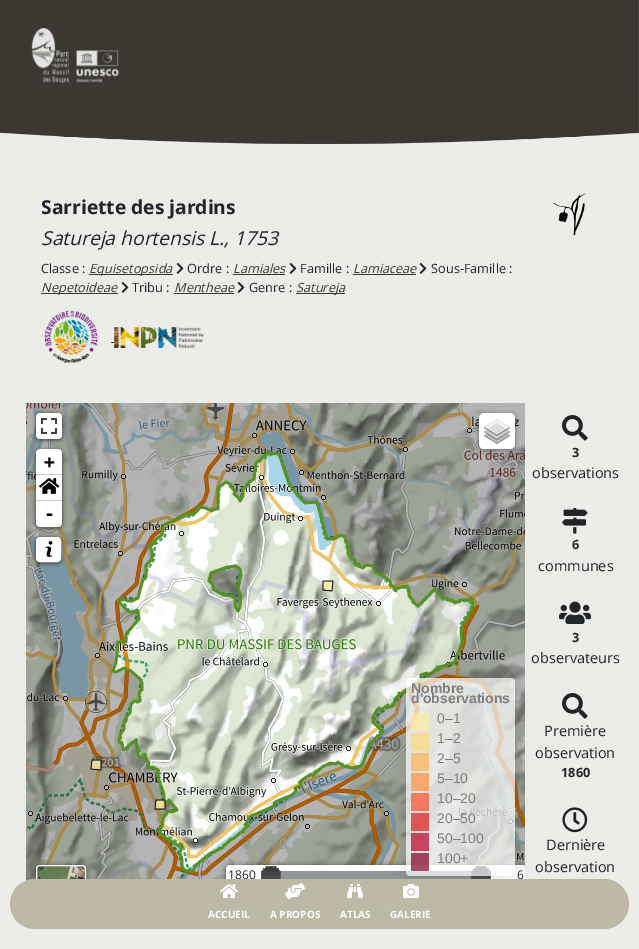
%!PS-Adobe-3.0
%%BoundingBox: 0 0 639 949
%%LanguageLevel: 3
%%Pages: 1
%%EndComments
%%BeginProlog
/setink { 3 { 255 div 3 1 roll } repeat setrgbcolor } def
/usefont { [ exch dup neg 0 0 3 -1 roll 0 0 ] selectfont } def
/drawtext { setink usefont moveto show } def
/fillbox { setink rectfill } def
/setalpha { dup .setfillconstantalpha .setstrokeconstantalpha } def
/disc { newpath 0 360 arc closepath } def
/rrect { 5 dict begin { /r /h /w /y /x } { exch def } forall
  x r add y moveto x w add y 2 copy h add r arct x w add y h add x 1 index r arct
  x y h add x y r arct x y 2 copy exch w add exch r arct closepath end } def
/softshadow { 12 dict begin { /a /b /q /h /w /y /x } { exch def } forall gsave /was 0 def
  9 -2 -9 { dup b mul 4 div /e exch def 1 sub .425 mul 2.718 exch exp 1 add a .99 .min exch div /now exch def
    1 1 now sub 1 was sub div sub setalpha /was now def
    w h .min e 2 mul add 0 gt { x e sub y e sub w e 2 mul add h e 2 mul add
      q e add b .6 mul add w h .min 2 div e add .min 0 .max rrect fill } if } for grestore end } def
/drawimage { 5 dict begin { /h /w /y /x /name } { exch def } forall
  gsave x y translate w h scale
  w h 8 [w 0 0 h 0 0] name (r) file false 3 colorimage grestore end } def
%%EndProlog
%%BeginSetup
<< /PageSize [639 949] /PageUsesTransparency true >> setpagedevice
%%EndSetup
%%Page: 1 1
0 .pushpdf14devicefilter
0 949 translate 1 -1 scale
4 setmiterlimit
0 0 639 949 255 255 255 fillbox
0 100 639 849 236 236 233 fillbox
(assets/img1.rgb) 0 0 639 144 drawimage
(assets/img2.rgb) 31 28 88 55 drawimage
(Sarriette des jardins) 41 214 /OpenSans-Bold 19.25 33 37 41 drawtext
(Satureja hortensis L., 1753) 41 245 /OpenSans-Italic 19.25 33 37 41 drawtext
(Classe :) 41 273 /OpenSans-Regular 12.75 33 37 41 drawtext
89 274 84 1 58 56 49 fillbox
(Equisetopsida) 89 273 /OpenSans-Italic 12.75 58 56 49 drawtext
(assets/img3.rgb) 176 263 8 11 drawimage
(Ordre :) 187 273 /OpenSans-Regular 12.75 33 37 41 drawtext
(Lamiales) 233 273 /OpenSans-Italic 12.75 58 56 49 drawtext
233 274 52 1 58 56 49 fillbox
(assets/img3.rgb) 289 263 8 11 drawimage
(Famille :) 300 273 /OpenSans-Regular 12.75 33 37 41 drawtext
(Lamiaceae) 353 273 /OpenSans-Italic 12.75 58 56 49 drawtext
353 274 63 1 58 56 49 fillbox
(assets/img3.rgb) 419 263 8 11 drawimage
(Sous-Famille :) 431 273 /OpenSans-Regular 12.75 33 37 41 drawtext
41 293 77 1 58 56 49 fillbox
(Nepetoideae) 41 292 /OpenSans-Italic 12.75 58 56 49 drawtext
(assets/img3.rgb) 121 282 8 11 drawimage
(Tribu :) 132 292 /OpenSans-Regular 12.75 33 37 41 drawtext
(Mentheae) 174 292 /OpenSans-Italic 12.75 58 56 49 drawtext
174 293 60 1 58 56 49 fillbox
(assets/img3.rgb) 237 282 8 11 drawimage
(Genre :) 249 292 /OpenSans-Regular 12.75 33 37 41 drawtext
296 293 49 1 58 56 49 fillbox
(Satureja) 296 292 /OpenSans-Italic 12.75 58 56 49 drawtext
(assets/img4.rgb) 44 310 54 53 drawimage
111 342 3 1 58 56 49 fillbox
(assets/img5.rgb) 114 327 90 21 drawimage
(assets/img6.rgb) 553 193 33 42 drawimage
(assets/img7.rgb) 26 403 122 107 drawimage
(assets/img8.rgb) 148 403 256 107 drawimage
(assets/img9.rgb) 404 403 121 107 drawimage
(assets/img10.rgb) 26 510 122 256 drawimage
(assets/img11.rgb) 148 510 256 256 drawimage
(assets/img12.rgb) 404 510 121 256 drawimage
(assets/img13.rgb) 26 766 122 115 drawimage
(assets/img14.rgb) 148 766 256 113 drawimage
(assets/img15.rgb) 404 766 121 101 drawimage
(assets/img16.rgb) 26 403 499 478 drawimage
0 0 0 setink
479 414 36 36 5 2.5 0.4 softshadow
255 255 255 setink
479 413 36 36 5 rrect fill
(assets/img17.rgb) 484 419 26 25 drawimage
0 0 0 setink
36 414 26 26 4 2.5 0.65 softshadow
255 255 255 setink
36 413 26 26 4 rrect fill
(assets/img18.rgb) 41 418 16 16 drawimage
0 0 0 setink
36 450 26 78 4 2.5 0.65 softshadow
255 255 255 setink
40 449 moveto 58 449 lineto 60 449 62 451 62 453 curveto 62 475 lineto 36 475 lineto 36 453 lineto 36 451 38 449 40 449 curveto closepath fill
36 474 26 1 204 204 204 fillbox
(+) 44 468 /DejaVuSansMono-Bold 18 0 0 0 drawtext
36 475 26 25 255 255 255 fillbox
36 500 26 1 204 204 204 fillbox
(assets/img19.rgb) 39 478 21 16 drawimage
255 255 255 setink
36 501 moveto 62 501 lineto 62 523 lineto 62 525 60 527 58 527 curveto 40 527 lineto 38 527 36 525 36 523 curveto closepath fill
(-) 44 520 /DejaVuSansMono-Bold 18 0 0 0 drawtext
36 538 25 25 4 2.5 0.65 softshadow
255 255 255 setink
36.5 537.5 24 24 3.5 rrect gsave fill grestore
stroke
(assets/img20.rgb) 45 541 8 16 drawimage
gsave
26 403 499 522 rectclip
0 0 0 setink
226 866 300 70 4 2.5 0.65 softshadow
grestore
gsave
26 403 499 522 rectclip
226.5 865.5 299 69 3.5 rrect gsave fill grestore
stroke
grestore
279 871 194 8 144 149 150 fillbox
gsave 481 876 10 disc clip newpath
<< /ShadingType 2 /ColorSpace /DeviceRGB /Coords [481 866 481 886] /Extend [true true] /Function << /FunctionType 2 /Domain [0 1] /C0 [0.2 0.2 0.2] /C1 [0.365 0.365 0.365] /N 1 >> >> shfill grestore
0.2 setalpha
255 255 255 setink
481 867 moveto 488.5 867 491.5 873 490.5 879 curveto 494 867 476.5 860.5 472 872 curveto 471 874 471 876.5 471.5 879 curveto 470.5 873 473.5 867 481 867 curveto closepath fill
gsave
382 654 moveto 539 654 lineto 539 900 lineto 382 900 lineto closepath 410 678 moveto 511 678 lineto 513 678 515 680 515 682 curveto 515 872 lineto 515 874 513 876 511 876 curveto 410 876 lineto 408 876 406 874 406 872 curveto 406 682 lineto 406 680 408 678 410 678 curveto closepath eoclip newpath
1 setalpha
0 0 0 setink
406 678 109 198 4 7.5 0.14 softshadow
grestore
0.7 setalpha
406 678 109 198 4 rrect fill
1 setalpha
(Nombre) 411 693 /LiberationSans-Bold 14 126 127 125 drawtext
(d'observations) 411 703 /LiberationSans-Bold 14 126 127 125 drawtext
0.7 setalpha
411 713 18 18 255 237 160 fillbox
1 setalpha
(0–1) 437 723 /LiberationSans-Regular 14 126 127 125 drawtext
0.7 setalpha
411 733 18 18 254 217 118 fillbox
1 setalpha
(1–2) 437 743 /LiberationSans-Regular 14 126 127 125 drawtext
0.7 setalpha
411 753 18 18 254 178 76 fillbox
1 setalpha
(2–5) 437 763 /LiberationSans-Regular 14 126 127 125 drawtext
0.7 setalpha
411 773 18 18 253 141 60 fillbox
1 setalpha
(5–10) 437 783 /LiberationSans-Regular 14 126 127 125 drawtext
0.7 setalpha
411 793 18 18 252 78 42 fillbox
1 setalpha
(10–20) 437 803 /LiberationSans-Regular 14 126 127 125 drawtext
0.7 setalpha
411 813 18 18 227 26 28 fillbox
1 setalpha
(20–50) 437 823 /LiberationSans-Regular 14 126 127 125 drawtext
0.7 setalpha
411 833 18 18 189 0 38 fillbox
1 setalpha
(50–100) 437 843 /LiberationSans-Regular 14 126 127 125 drawtext
0.7 setalpha
411 853 18 18 128 0 38 fillbox
1 setalpha
(100+) 437 863 /LiberationSans-Regular 14 126 127 125 drawtext
0 0 0 setink
36 866 50 50 4 2.5 0.65 softshadow
(assets/img21.rgb) 36 865 50 14 drawimage
255 255 255 setink
36.5 865.5 49 49 3.5 rrect stroke
(0) 279 849 /Roboto-Regular 14 158 156 135 drawtext
gsave 271 876 10 disc clip newpath
<< /ShadingType 2 /ColorSpace /DeviceRGB /Coords [271 866 271 886] /Extend [true true] /Function << /FunctionType 2 /Domain [0 1] /C0 [0.2 0.2 0.2] /C1 [0.365 0.365 0.365] /N 1 >> >> shfill grestore
0.2 setalpha
255 255 255 setink
271 867 moveto 278.5 867 281.5 873 280.5 879 curveto 284 867 266.5 860.5 262 872 curveto 261 874 261 876.5 261.5 879 curveto 260.5 873 263.5 867 271 867 curveto closepath fill
1 setalpha
(1860) 228 879 /OpenSans-Regular 12 33 37 41 drawtext
(6) 517 879 /OpenSans-Regular 12 33 37 41 drawtext
(assets/img22.rgb) 562 415 26 26 drawimage
(3) 572 457 /OpenSans-Bold 12.75 33 37 41 drawtext
(observations) 532 478 /OpenSans-Regular 14.5 33 37 41 drawtext
(assets/img23.rgb) 562 508 26 26 drawimage
(6) 572 549 /OpenSans-Bold 12.75 33 37 41 drawtext
(communes) 538 571 /OpenSans-Regular 14.5 33 37 41 drawtext
(assets/img24.rgb) 559 601 32 23 drawimage
(3) 572 642 /OpenSans-Bold 12.75 33 37 41 drawtext
(observateurs) 531 663 /OpenSans-Regular 14.5 33 37 41 drawtext
(assets/img22.rgb) 562 693 26 26 drawimage
(Première) 544 736 /OpenSans-Regular 14.5 33 37 41 drawtext
(observation) 535 758 /OpenSans-Regular 14.5 33 37 41 drawtext
(1860) 561 777 /OpenSans-Bold 12.75 33 37 41 drawtext
(assets/img25.rgb) 562 807 26 26 drawimage
(Dernière) 546 850 /OpenSans-Regular 14.5 33 37 41 drawtext
(observation) 535 872 /OpenSans-Regular 14.5 33 37 41 drawtext
190 185 166 setink
10 879 619 50 25 rrect fill
(assets/img26.rgb) 220 884 18 14 drawimage
(ACCUEIL) 208 918 /OpenSans-Bold 10 255 255 255 drawtext
(assets/img27.rgb) 285 883 20 16 drawimage
(A PROPOS) 270 918 /OpenSans-Bold 10 255 255 255 drawtext
(assets/img28.rgb) 347 884 16 14 drawimage
(ATLAS) 340 918 /OpenSans-Bold 10 255 255 255 drawtext
(assets/img29.rgb) 403 884 16 14 drawimage
(GALERIE) 390 918 /OpenSans-Bold 10 255 255 255 drawtext
.poppdf14devicefilter showpage
%%EOF
